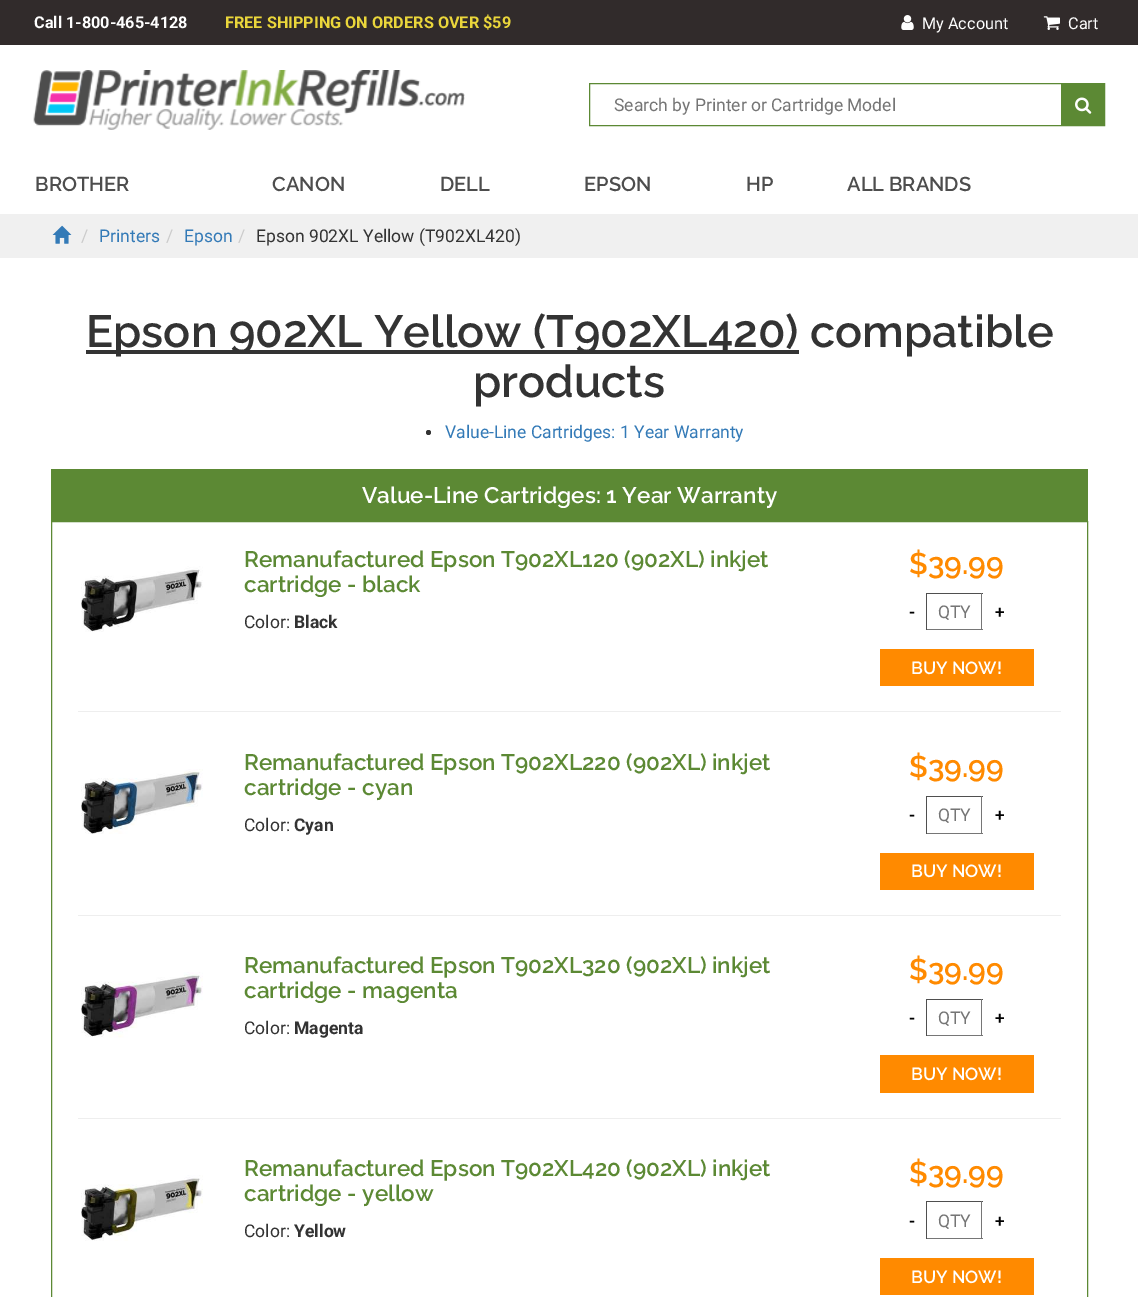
%!PS-Adobe-3.0
%%BoundingBox: 0 0 1138 1297
%%LanguageLevel: 3
%%Pages: 1
%%EndComments
%%BeginProlog
/setink { 3 { 255 div 3 1 roll } repeat setrgbcolor } def
/usefont { [ exch dup neg 0 0 3 -1 roll 0 0 ] selectfont } def
/drawtext { setink usefont moveto show } def
/fillbox { setink rectfill } def
/disc { newpath 0 360 arc closepath } def
/drawimage { 5 dict begin { /h /w /y /x /name } { exch def } forall
  gsave x y translate w h scale
  w h 8 [w 0 0 h 0 0] name (r) file false 3 colorimage grestore end } def
%%EndProlog
%%BeginSetup
<< /PageSize [1138 1297] >> setpagedevice
%%EndSetup
%%Page: 1 1
0 1297 translate 1 -1 scale
4 setmiterlimit
0 0 1138 1297 255 255 255 fillbox
0 0 1138 45 49 43 43 fillbox
(Call 1-800-465-4128) 34 28 /Roboto-Bold 16.25 255 255 255 drawtext
(FREE SHIPPING ON ORDERS OVER $59) 225 28 /Roboto-Bold 16.25 234 214 59 drawtext
(assets/img1.rgb) 901 15 13 15 drawimage
(My Account) 922 29 /Roboto-Regular 16.25 255 255 255 drawtext
(assets/img2.rgb) 1043 16 17 14 drawimage
(Cart) 1068 29 /Roboto-Regular 16.25 255 255 255 drawtext
(assets/img3.rgb) 33 70 432 60 drawimage
92 137 52 setink
589.5 83.5 515 42 rectstroke
(Search by Printer or Cartridge Model) 614 111 /Roboto-Regular 17.5 117 117 117 drawtext
1061 84 43 41 92 137 52 fillbox
(assets/img4.rgb) 1075 97 17 17 drawimage
(BROTHER) 35 191 /Raleway-SemiBold 20 77 77 77 drawtext
(CANON) 272 191 /Raleway-SemiBold 20 77 77 77 drawtext
(DELL) 440 191 /Raleway-SemiBold 20 77 77 77 drawtext
(EPSON) 584 191 /Raleway-SemiBold 20 77 77 77 drawtext
(HP) 746 191 /Raleway-SemiBold 20 77 77 77 drawtext
(ALL BRANDS) 847 191 /Raleway-SemiBold 20 77 77 77 drawtext
0 214 1138 44 240 240 240 fillbox
(assets/img5.rgb) 52 225 20 19 drawimage
(/) 81 242 /Roboto-Regular 17.5 204 204 204 drawtext
(Printers) 99 242 /Roboto-Regular 17.5 51 122 183 drawtext
(/) 166 242 /Roboto-Regular 17.5 204 204 204 drawtext
(Epson) 184 242 /Roboto-Regular 17.5 51 122 183 drawtext
(/) 238 242 /Roboto-Regular 17.5 204 204 204 drawtext
(Epson 902XL Yellow \(T902XL420\)) 256 242 /Roboto-Regular 17.5 51 51 51 drawtext
86 350 713 4 51 51 51 fillbox
(Epson 902XL Yellow \(T902XL420\) compatible) 86 347 /Raleway-SemiBold 45 51 51 51 drawtext
(products) 473 397 /Raleway-SemiBold 45 51 51 51 drawtext
428.5 432.5 2.5 disc fill
(Value-Line Cartridges: 1 Year Warranty) 445 438 /Roboto-Regular 17.5 51 122 183 drawtext
51 469 1037 52 92 137 52 fillbox
(Value-Line Cartridges: 1 Year Warranty) 362 503 /Raleway-SemiBold 22.5 255 255 255 drawtext
92 137 52 setink
51.5 521.5 1036 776 rectstroke
(assets/img6.rgb) 81 566 122 66 drawimage
(Remanufactured Epson T902XL120 \(902XL\) inkjet) 244 567 /Raleway-SemiBold 22.5 92 137 52 drawtext
(cartridge - black) 244 592 /Raleway-SemiBold 22.5 92 137 52 drawtext
(Color:) 244 628 /Roboto-Regular 17.5 51 51 51 drawtext
(Black) 294 628 /Roboto-Bold 17.5 51 51 51 drawtext
($39.99) 909 574 /Raleway-SemiBold 30 255 138 0 drawtext
(-) 909 618 /Roboto-Medium 17.5 0 0 0 drawtext
926 593 57 1 79 79 79 fillbox
981 593 1 37 118 118 118 fillbox
926 629 57 1 118 118 118 fillbox
926 593 1 37 79 79 79 fillbox
(QTY) 938 618 /Roboto-Regular 17.5 117 117 117 drawtext
(+) 995 618 /Roboto-Medium 17.5 0 0 0 drawtext
880 649 154 37 255 138 0 fillbox
(BUY NOW!) 911 674 /Raleway-SemiBold 17.5 255 255 255 drawtext
78 711 983 1 238 238 238 fillbox
(assets/img7.rgb) 81 769 122 65 drawimage
(Remanufactured Epson T902XL220 \(902XL\) inkjet) 244 770 /Raleway-SemiBold 22.5 92 137 52 drawtext
(cartridge - cyan) 244 795 /Raleway-SemiBold 22.5 92 137 52 drawtext
(Color:) 244 831 /Roboto-Regular 17.5 51 51 51 drawtext
(Cyan) 294 831 /Roboto-Bold 17.5 51 51 51 drawtext
($39.99) 909 777 /Raleway-SemiBold 30 255 138 0 drawtext
(-) 909 821 /Roboto-Medium 17.5 0 0 0 drawtext
926 796 57 1 79 79 79 fillbox
981 796 1 38 118 118 118 fillbox
926 833 57 1 118 118 118 fillbox
926 796 1 38 79 79 79 fillbox
(QTY) 938 821 /Roboto-Regular 17.5 117 117 117 drawtext
(+) 995 821 /Roboto-Medium 17.5 0 0 0 drawtext
880 853 154 37 255 138 0 fillbox
(BUY NOW!) 911 877 /Raleway-SemiBold 17.5 255 255 255 drawtext
78 915 983 1 238 238 238 fillbox
(assets/img8.rgb) 81 972 122 66 drawimage
(Remanufactured Epson T902XL320 \(902XL\) inkjet) 244 973 /Raleway-SemiBold 22.5 92 137 52 drawtext
(cartridge - magenta) 244 998 /Raleway-SemiBold 22.5 92 137 52 drawtext
(Color:) 244 1034 /Roboto-Regular 17.5 51 51 51 drawtext
(Magenta) 294 1034 /Roboto-Bold 17.5 51 51 51 drawtext
($39.99) 909 980 /Raleway-SemiBold 30 255 138 0 drawtext
(-) 909 1024 /Roboto-Medium 17.5 0 0 0 drawtext
926 999 57 1 79 79 79 fillbox
981 999 1 37 118 118 118 fillbox
926 1035 57 1 118 118 118 fillbox
926 999 1 37 79 79 79 fillbox
(QTY) 938 1024 /Roboto-Regular 17.5 117 117 117 drawtext
(+) 995 1024 /Roboto-Medium 17.5 0 0 0 drawtext
880 1055 154 38 255 138 0 fillbox
(BUY NOW!) 911 1080 /Raleway-SemiBold 17.5 255 255 255 drawtext
78 1118 983 1 238 238 238 fillbox
(assets/img9.rgb) 81 1175 122 66 drawimage
(Remanufactured Epson T902XL420 \(902XL\) inkjet) 244 1176 /Raleway-SemiBold 22.5 92 137 52 drawtext
(cartridge - yellow) 244 1201 /Raleway-SemiBold 22.5 92 137 52 drawtext
(Color:) 244 1237 /Roboto-Regular 17.5 51 51 51 drawtext
(Yellow) 294 1237 /Roboto-Bold 17.5 51 51 51 drawtext
($39.99) 909 1183 /Raleway-SemiBold 30 255 138 0 drawtext
(-) 909 1227 /Roboto-Medium 17.5 0 0 0 drawtext
926 1201 57 1 79 79 79 fillbox
981 1201 1 38 118 118 118 fillbox
926 1238 57 1 118 118 118 fillbox
926 1201 1 38 79 79 79 fillbox
(QTY) 938 1227 /Roboto-Regular 17.5 117 117 117 drawtext
(+) 995 1227 /Roboto-Medium 17.5 0 0 0 drawtext
880 1258 154 37 255 138 0 fillbox
(BUY NOW!) 911 1283 /Raleway-SemiBold 17.5 255 255 255 drawtext
showpage
%%EOF
